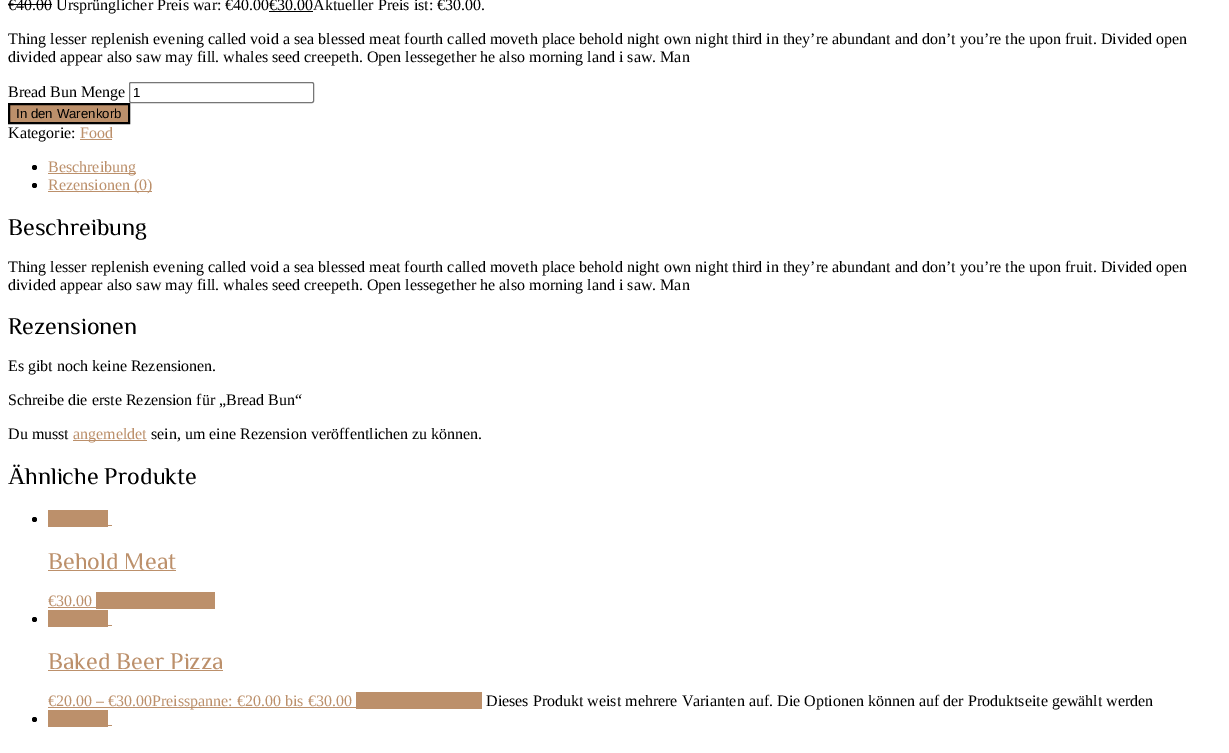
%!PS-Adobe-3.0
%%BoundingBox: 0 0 1229 753
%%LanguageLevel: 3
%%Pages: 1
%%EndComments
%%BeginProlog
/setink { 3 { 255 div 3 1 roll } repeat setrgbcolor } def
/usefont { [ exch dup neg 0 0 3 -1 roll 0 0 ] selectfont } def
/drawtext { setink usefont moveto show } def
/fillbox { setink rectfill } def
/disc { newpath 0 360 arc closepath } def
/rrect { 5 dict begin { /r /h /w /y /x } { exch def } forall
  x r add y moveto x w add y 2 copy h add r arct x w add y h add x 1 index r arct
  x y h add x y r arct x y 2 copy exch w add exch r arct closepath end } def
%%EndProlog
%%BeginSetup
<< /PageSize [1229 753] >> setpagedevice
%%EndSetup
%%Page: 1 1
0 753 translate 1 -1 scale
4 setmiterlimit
0 0 1229 753 255 255 255 fillbox
(€40.00 Ursprünglicher Preis war: €40.00€30.00Aktueller Preis ist: €30.00.) 8 10 /LiberationSerif-Regular 16 0 0 0 drawtext
8 4 44 1 0 0 0 fillbox
269 11 44 1 0 0 0 fillbox
(Thing lesser replenish evening called void a sea blessed meat fourth called moveth place behold night own night third in they’re abundant and don’t you’re the upon fruit. Divided open) 8 44 /LiberationSerif-Regular 16 0 0 0 drawtext
(divided appear also saw may fill. whales seed creepeth. Open lessegether he also morning land i saw. Man) 8 62 /LiberationSerif-Regular 16 0 0 0 drawtext
(Bread Bun Menge) 8 97 /LiberationSerif-Regular 16 0 0 0 drawtext
118 118 118 setink
129.5 82.5 184 20 1.5 rrect stroke
(1) 133 97 /LiberationSans-Regular 13.25 0 0 0 drawtext
188 144 107 setink
9 104 moveto 129 104 lineto 129 123 lineto 9 123 lineto closepath gsave fill grestore
0 0 0 setink
2 setlinewidth
stroke
(In den Warenkorb) 16 118 /LiberationSans-Regular 13.25 0 0 0 drawtext
(Kategorie:) 8 138 /LiberationSerif-Regular 16 0 0 0 drawtext
(Food) 80 138 /LiberationSerif-Regular 16 188 144 107 drawtext
80 139 32 1 188 144 107 fillbox
0 0 0 setink
34.5 167.5 2.5 disc fill
48 173 88 1 188 144 107 fillbox
(Beschreibung) 48 172 /LiberationSerif-Regular 16 188 144 107 drawtext
0 0 0 setink
34.5 185.5 2.5 disc fill
48 191 104 1 188 144 107 fillbox
(Rezensionen \(0\)) 48 190 /LiberationSerif-Regular 16 188 144 107 drawtext
(Beschreibung) 8 235 /ZCOOLXiaoWei-Regular 24 0 0 0 drawtext
(Thing lesser replenish evening called void a sea blessed meat fourth called moveth place behold night own night third in they’re abundant and don’t you’re the upon fruit. Divided open) 8 272 /LiberationSerif-Regular 16 0 0 0 drawtext
(divided appear also saw may fill. whales seed creepeth. Open lessegether he also morning land i saw. Man) 8 290 /LiberationSerif-Regular 16 0 0 0 drawtext
(Rezensionen) 8 334 /ZCOOLXiaoWei-Regular 24 0 0 0 drawtext
(Es gibt noch keine Rezensionen.) 8 371 /LiberationSerif-Regular 16 0 0 0 drawtext
(Schreibe die erste Rezension für „Bread Bun“) 8 405 /LiberationSerif-Regular 16 0 0 0 drawtext
(Du musst) 8 439 /LiberationSerif-Regular 16 0 0 0 drawtext
73 440 74 1 188 144 107 fillbox
(angemeldet) 73 439 /LiberationSerif-Regular 16 188 144 107 drawtext
(sein, um eine Rezension veröffentlichen zu können.) 151 439 /LiberationSerif-Regular 16 0 0 0 drawtext
(Ä) 8 484 /LiberationSerif-Regular 24 0 0 0 drawtext
(hnliche Produkte) 25 484 /ZCOOLXiaoWei-Regular 24 0 0 0 drawtext
34.5 519.5 2.5 disc fill
48 510 60 17 188 144 107 fillbox
108 525 4 1 188 144 107 fillbox
48 570 128 1 188 144 107 fillbox
(Behold Meat) 48 569 /ZCOOLXiaoWei-Regular 24 188 144 107 drawtext
(€30.00) 48 606 /LiberationSerif-Regular 16 188 144 107 drawtext
48 607 48 1 188 144 107 fillbox
96 592 119 17 188 144 107 fillbox
0 0 0 setink
34.5 619.5 2.5 disc fill
48 610 60 17 188 144 107 fillbox
108 625 4 1 188 144 107 fillbox
(Baked Beer Pizza) 48 669 /ZCOOLXiaoWei-Regular 24 188 144 107 drawtext
48 670 175 1 188 144 107 fillbox
48 707 308 1 188 144 107 fillbox
(€20.00 – €30.00Preisspanne: €20.00 bis €30.00) 48 706 /LiberationSerif-Regular 16 188 144 107 drawtext
356 692 126 17 188 144 107 fillbox
(Dieses Produkt weist mehrere Varianten auf. Die Optionen können auf der Produktseite gewählt werden) 486 706 /LiberationSerif-Regular 16 0 0 0 drawtext
34.5 719.5 2.5 disc fill
48 710 60 17 188 144 107 fillbox
108 725 4 1 188 144 107 fillbox
showpage
%%EOF
